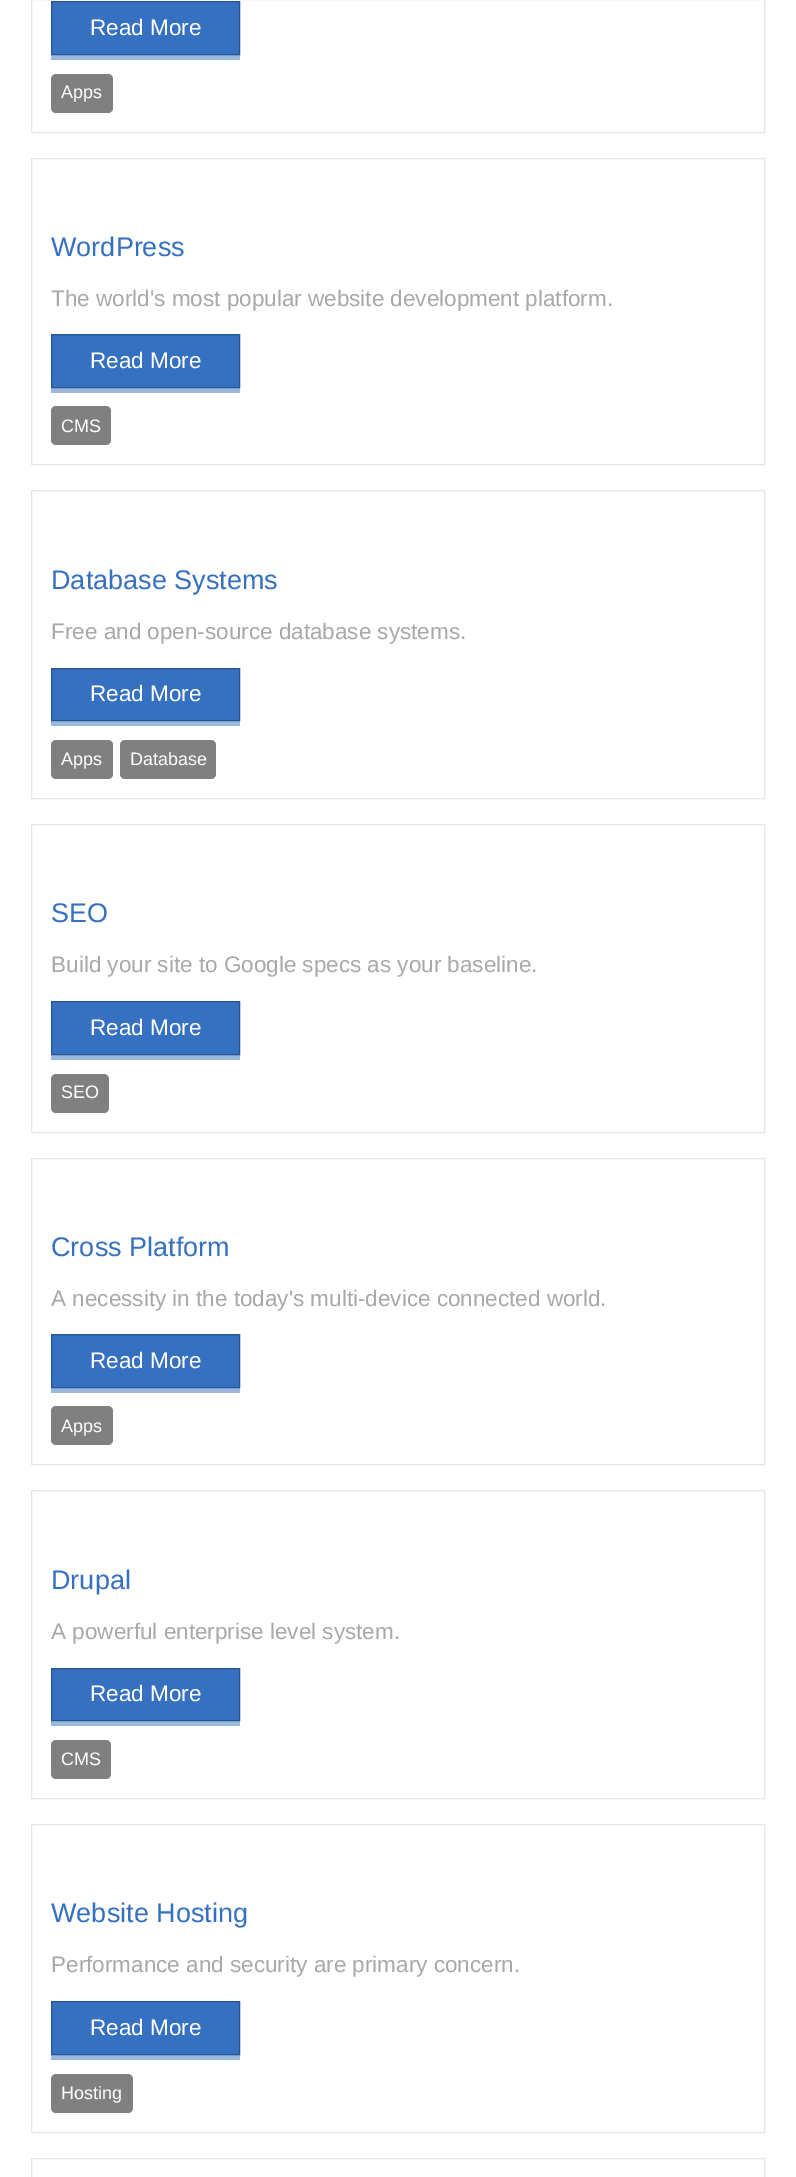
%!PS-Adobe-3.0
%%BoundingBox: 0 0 796 2177
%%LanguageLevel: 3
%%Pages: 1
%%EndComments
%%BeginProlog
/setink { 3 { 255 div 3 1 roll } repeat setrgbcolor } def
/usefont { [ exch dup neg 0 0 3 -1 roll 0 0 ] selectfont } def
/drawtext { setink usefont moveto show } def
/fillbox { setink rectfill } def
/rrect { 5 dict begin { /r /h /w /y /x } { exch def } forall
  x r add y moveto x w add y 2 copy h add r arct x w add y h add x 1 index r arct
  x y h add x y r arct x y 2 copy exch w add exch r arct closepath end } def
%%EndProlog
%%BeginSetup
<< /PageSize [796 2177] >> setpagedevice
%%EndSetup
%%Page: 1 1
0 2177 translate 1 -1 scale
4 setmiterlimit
0 0 796 2177 255 255 255 fillbox
230 230 230 setink
31.5 -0.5 733 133 rectstroke
154 184 224 setink
51 6 moveto 51 60 lineto 240 60 lineto 240 55 lineto 51 55 lineto closepath fill
53 112 193 setink
51.5 1.5 moveto 239.5 1.5 lineto 239.5 54.5 lineto 51.5 54.5 lineto closepath gsave fill grestore
40 84 145 setink
stroke
(Read More) 90 35 /LiberationSans-Regular 22.5 255 255 255 drawtext
128 128 128 setink
51 74 62 39 5 rrect fill
(Apps) 61 98 /LiberationSans-Regular 18 255 255 255 drawtext
230 230 230 setink
31.5 158.5 733 306 rectstroke
(WordPress) 51 256 /LiberationSans-Regular 27 53 112 193 drawtext
(The world's most popular website development platform.) 51 306 /LiberationSans-Regular 22.5 170 168 169 drawtext
154 184 224 setink
51 339 moveto 51 393 lineto 240 393 lineto 240 388 lineto 51 388 lineto closepath fill
53 112 193 setink
51.5 334.5 moveto 239.5 334.5 lineto 239.5 387.5 lineto 51.5 387.5 lineto closepath gsave fill grestore
40 84 145 setink
stroke
(Read More) 90 368 /LiberationSans-Regular 22.5 255 255 255 drawtext
128 128 128 setink
51 406 60 39 5 rrect fill
(CMS) 61 432 /LiberationSans-Regular 18 255 255 255 drawtext
230 230 230 setink
31.5 490.5 733 308 rectstroke
(Database Systems) 51 589 /LiberationSans-Regular 27 53 112 193 drawtext
(Free and open-source database systems.) 51 639 /LiberationSans-Regular 22.5 170 168 169 drawtext
154 184 224 setink
51 673 moveto 51 726 lineto 240 726 lineto 240 721 lineto 51 721 lineto closepath fill
53 112 193 setink
51.5 668.5 moveto 239.5 668.5 lineto 239.5 720.5 lineto 51.5 720.5 lineto closepath gsave fill grestore
40 84 145 setink
stroke
(Read More) 90 701 /LiberationSans-Regular 22.5 255 255 255 drawtext
128 128 128 setink
51 740 62 39 5 rrect fill
(Apps) 61 765 /LiberationSans-Regular 18 255 255 255 drawtext
128 128 128 setink
120 740 96 39 5 rrect fill
(Database) 130 765 /LiberationSans-Regular 18 255 255 255 drawtext
230 230 230 setink
31.5 824.5 733 308 rectstroke
(SEO) 51 922 /LiberationSans-Regular 27 53 112 193 drawtext
(Build your site to Google specs as your baseline.) 51 972 /LiberationSans-Regular 22.5 170 168 169 drawtext
154 184 224 setink
51 1006 moveto 51 1060 lineto 240 1060 lineto 240 1055 lineto 51 1055 lineto closepath fill
53 112 193 setink
51.5 1001.5 moveto 239.5 1001.5 lineto 239.5 1054.5 lineto 51.5 1054.5 lineto closepath gsave fill grestore
40 84 145 setink
stroke
(Read More) 90 1035 /LiberationSans-Regular 22.5 255 255 255 drawtext
128 128 128 setink
51 1074 58 39 5 rrect fill
(SEO) 61 1098 /LiberationSans-Regular 18 255 255 255 drawtext
230 230 230 setink
31.5 1158.5 733 306 rectstroke
(Cross Platform) 51 1256 /LiberationSans-Regular 27 53 112 193 drawtext
(A necessity in the today's multi-device connected world.) 51 1306 /LiberationSans-Regular 22.5 170 168 169 drawtext
154 184 224 setink
51 1339 moveto 51 1393 lineto 240 1393 lineto 240 1388 lineto 51 1388 lineto closepath fill
53 112 193 setink
51.5 1334.5 moveto 239.5 1334.5 lineto 239.5 1387.5 lineto 51.5 1387.5 lineto closepath gsave fill grestore
40 84 145 setink
stroke
(Read More) 90 1368 /LiberationSans-Regular 22.5 255 255 255 drawtext
128 128 128 setink
51 1406 62 39 5 rrect fill
(Apps) 61 1432 /LiberationSans-Regular 18 255 255 255 drawtext
230 230 230 setink
31.5 1490.5 733 308 rectstroke
(Drupal) 51 1589 /LiberationSans-Regular 27 53 112 193 drawtext
(A powerful enterprise level system.) 51 1639 /LiberationSans-Regular 22.5 170 168 169 drawtext
154 184 224 setink
51 1673 moveto 51 1726 lineto 240 1726 lineto 240 1721 lineto 51 1721 lineto closepath fill
53 112 193 setink
51.5 1668.5 moveto 239.5 1668.5 lineto 239.5 1720.5 lineto 51.5 1720.5 lineto closepath gsave fill grestore
40 84 145 setink
stroke
(Read More) 90 1701 /LiberationSans-Regular 22.5 255 255 255 drawtext
128 128 128 setink
51 1740 60 39 5 rrect fill
(CMS) 61 1765 /LiberationSans-Regular 18 255 255 255 drawtext
230 230 230 setink
31.5 1824.5 733 308 rectstroke
(Website Hosting) 51 1922 /LiberationSans-Regular 27 53 112 193 drawtext
(Performance and security are primary concern.) 51 1972 /LiberationSans-Regular 22.5 170 168 169 drawtext
154 184 224 setink
51 2006 moveto 51 2060 lineto 240 2060 lineto 240 2055 lineto 51 2055 lineto closepath fill
53 112 193 setink
51.5 2001.5 moveto 239.5 2001.5 lineto 239.5 2054.5 lineto 51.5 2054.5 lineto closepath gsave fill grestore
40 84 145 setink
stroke
(Read More) 90 2035 /LiberationSans-Regular 22.5 255 255 255 drawtext
128 128 128 setink
51 2074 82 39 5 rrect fill
(Hosting) 61 2099 /LiberationSans-Regular 18 255 255 255 drawtext
230 230 230 setink
31.5 2158.5 733 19 rectstroke
showpage
%%EOF
